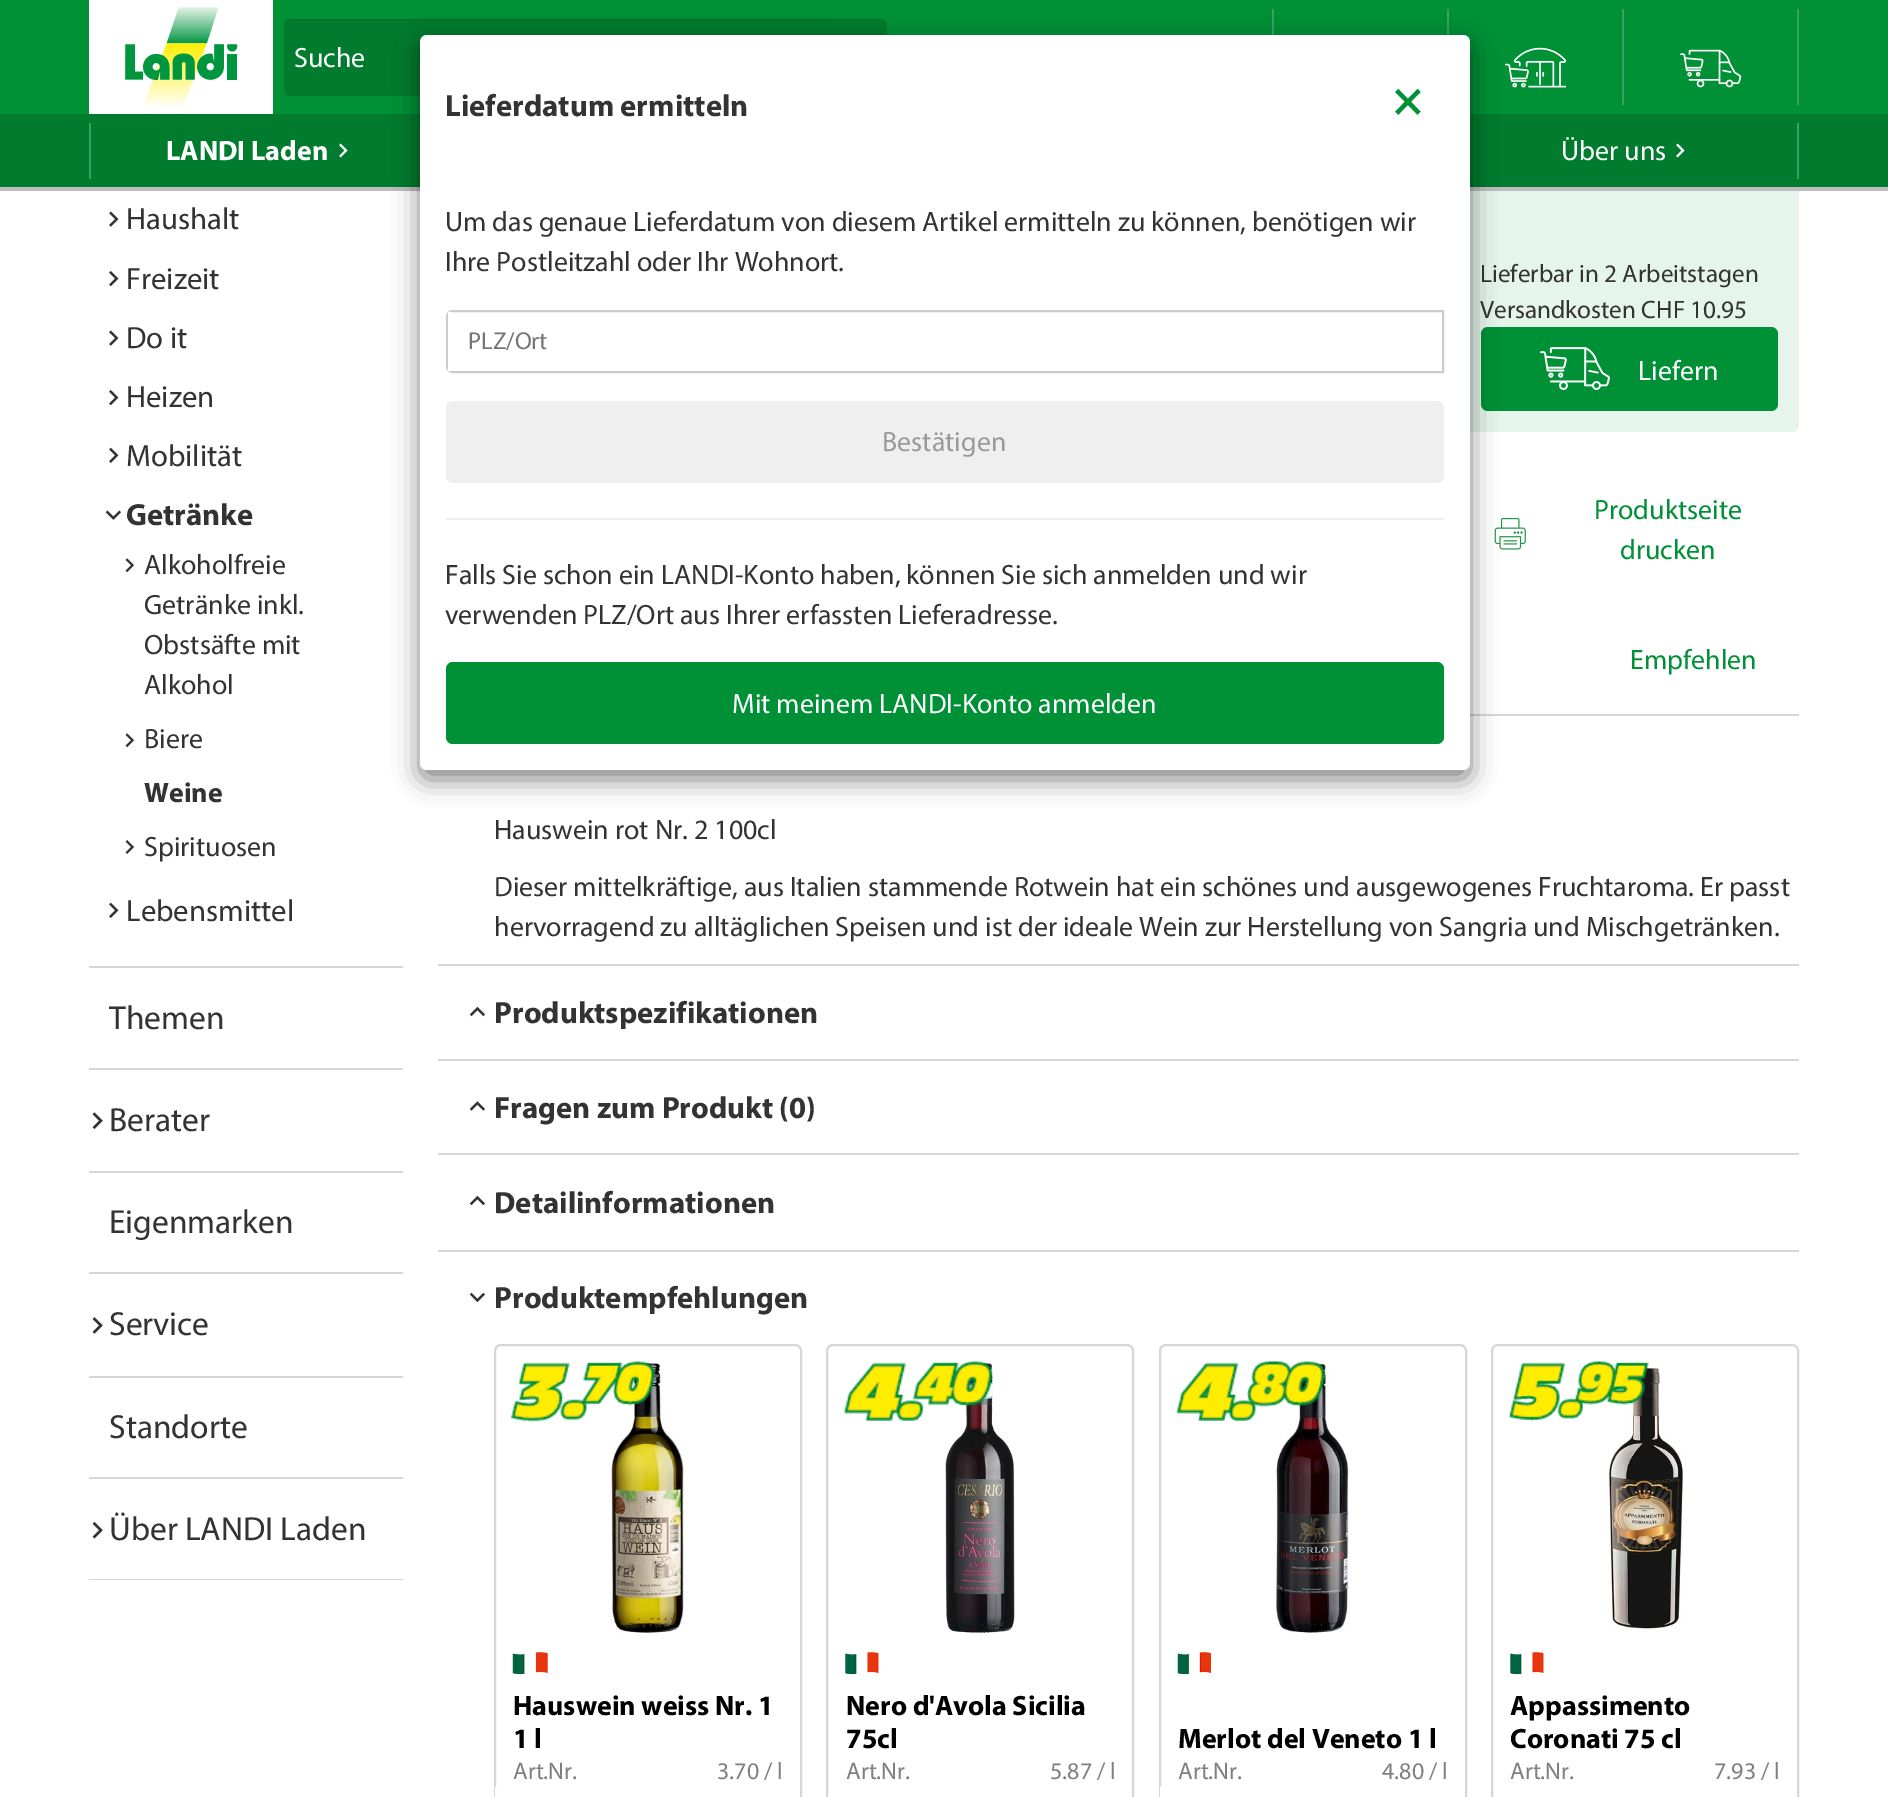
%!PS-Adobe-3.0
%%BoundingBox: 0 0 1888 1797
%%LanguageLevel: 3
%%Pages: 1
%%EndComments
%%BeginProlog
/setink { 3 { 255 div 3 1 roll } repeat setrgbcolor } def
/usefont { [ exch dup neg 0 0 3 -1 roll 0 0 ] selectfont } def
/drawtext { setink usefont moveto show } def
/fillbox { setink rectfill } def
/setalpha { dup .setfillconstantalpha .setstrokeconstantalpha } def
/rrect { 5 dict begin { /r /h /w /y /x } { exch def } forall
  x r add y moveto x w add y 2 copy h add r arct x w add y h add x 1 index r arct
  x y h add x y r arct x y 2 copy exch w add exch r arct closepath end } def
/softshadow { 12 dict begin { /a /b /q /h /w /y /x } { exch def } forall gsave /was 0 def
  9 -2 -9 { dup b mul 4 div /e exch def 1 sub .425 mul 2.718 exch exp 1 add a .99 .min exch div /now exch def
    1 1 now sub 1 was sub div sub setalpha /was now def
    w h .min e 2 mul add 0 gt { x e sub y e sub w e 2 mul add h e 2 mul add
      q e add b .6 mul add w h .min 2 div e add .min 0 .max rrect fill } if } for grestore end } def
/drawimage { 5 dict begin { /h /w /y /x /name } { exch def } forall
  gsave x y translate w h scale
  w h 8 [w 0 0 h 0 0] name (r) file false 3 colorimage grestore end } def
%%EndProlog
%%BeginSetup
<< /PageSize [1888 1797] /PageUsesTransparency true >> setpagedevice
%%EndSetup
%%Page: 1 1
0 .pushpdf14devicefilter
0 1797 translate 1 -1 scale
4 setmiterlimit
0 0 1888 1797 255 255 255 fillbox
230 245 236 setink
1136 44 663 388 7 rrect fill
0 0 1888 114 0 144 54 fillbox
89 0 184 114 255 255 255 fillbox
(assets/img1.rgb) 125 7 113 99 drawimage
1 123 46 setink
284 19 603 77 7 rrect fill
291 19 moveto 831 19 lineto 831 96 lineto 291 96 lineto 287 96 284 93 284 89 curveto 284 26 lineto 284 22 287 19 291 19 curveto closepath fill
1 114 43 setink
290 21 moveto 831 21 lineto 831 19 lineto 291 19 lineto 286 19 284 24 284 28 curveto 284 24 287 21 290 21 curveto closepath fill
(Suche) 294 67 /Myriad-Regular 28 255 255 255 drawtext
1272 9 2 26 51 166 94 fillbox
1447 9 2 26 51 166 94 fillbox
(assets/img2.rgb) 1505 47 62 41 drawimage
1622 9 2 96 51 166 94 fillbox
(assets/img3.rgb) 1680 49 62 39 drawimage
1797 9 2 96 51 166 94 fillbox
0 114 1888 73 1 123 46 fillbox
0 187 1888 4 190 190 190 fillbox
89 123 2 56 51 166 94 fillbox
(LANDI Laden) 166 160 /Myriad-Bold 28 255 255 255 drawtext
(assets/img4.rgb) 339 143 9 15 drawimage
1797 123 2 56 51 166 94 fillbox
(Über uns) 1561 160 /Myriad-Regular 28 255 255 255 drawtext
(assets/img4.rgb) 1676 143 9 15 drawimage
89 966 314 2 215 215 215 fillbox
(assets/img5.rgb) 109 211 10 16 drawimage
(Haushalt) 126 229 /Myriad-Regular 30.75 51 51 51 drawtext
(assets/img6.rgb) 109 271 10 16 drawimage
(Freizeit) 126 289 /Myriad-Regular 30.75 51 51 51 drawtext
(assets/img5.rgb) 109 330 10 16 drawimage
(Do it) 126 348 /Myriad-Regular 30.75 51 51 51 drawtext
(assets/img6.rgb) 109 390 10 16 drawimage
(Heizen) 126 407 /Myriad-Regular 30.75 51 51 51 drawtext
(assets/img7.rgb) 109 447 10 16 drawimage
(Mobilität) 126 466 /Myriad-Regular 30.75 51 51 51 drawtext
(assets/img8.rgb) 105 510 16 10 drawimage
(Getränke) 126 525 /Myriad-Bold 30.75 51 51 51 drawtext
(assets/img9.rgb) 125 558 10 15 drawimage
(Alkoholfreie) 144 574 /Myriad-Regular 28 51 51 51 drawtext
(Getränke inkl.) 144 614 /Myriad-Regular 28 51 51 51 drawtext
(Obstsäfte mit) 144 654 /Myriad-Regular 28 51 51 51 drawtext
(Alkohol) 144 694 /Myriad-Regular 28 51 51 51 drawtext
(assets/img9.rgb) 125 733 10 15 drawimage
(Biere) 144 748 /Myriad-Regular 28 51 51 51 drawtext
(Weine) 144 802 /Myriad-Bold 28 51 51 51 drawtext
(assets/img10.rgb) 125 840 9 14 drawimage
(Spirituosen) 144 856 /Myriad-Regular 28 51 51 51 drawtext
(assets/img7.rgb) 109 902 10 16 drawimage
(Lebensmittel) 126 921 /Myriad-Regular 30.75 51 51 51 drawtext
89 1068 314 2 215 215 215 fillbox
(Themen) 109 1029 /Myriad-Regular 33.5 51 51 51 drawtext
89 1171 314 2 215 215 215 fillbox
(assets/img11.rgb) 92 1112 11 17 drawimage
(Berater) 109 1131 /Myriad-Regular 33.5 51 51 51 drawtext
89 1272 314 2 215 215 215 fillbox
(Eigenmarken) 109 1233 /Myriad-Regular 33.5 51 51 51 drawtext
89 1376 314 2 215 215 215 fillbox
(assets/img12.rgb) 92 1317 11 17 drawimage
(Service) 109 1335 /Myriad-Regular 33.5 51 51 51 drawtext
89 1477 314 2 215 215 215 fillbox
(Standorte) 109 1438 /Myriad-Regular 33.5 51 51 51 drawtext
89 1579 314 1 215 215 215 fillbox
(assets/img13.rgb) 92 1521 11 18 drawimage
(Über LANDI Laden) 109 1540 /Myriad-Regular 33.5 51 51 51 drawtext
(Lieferbar in 2 Arbeitstagen) 1480 282 /Myriad-Regular 25.25 51 51 51 drawtext
(Versandkosten CHF 10.95) 1480 318 /Myriad-Regular 25.25 51 51 51 drawtext
0 144 54 setink
1481 327 297 84 7 rrect fill
(assets/img14.rgb) 1540 347 70 43 drawimage
(Liefern) 1638 380 /Myriad-Regular 28 255 255 255 drawtext
(assets/img15.rgb) 1494 518 32 32 drawimage
(Produktseite) 1594 519 /Myriad-Regular 28 0 144 54 drawtext
(drucken) 1620 559 /Myriad-Regular 28 0 144 54 drawtext
(Empfehlen) 1630 669 /Myriad-Regular 28 0 144 54 drawtext
1470 714 329 2 215 215 215 fillbox
438 964 1361 2 215 215 215 fillbox
(Hauswein rot Nr. 2 100cl) 494 839 /Myriad-Regular 28 51 51 51 drawtext
(Dieser mittelkräftige, aus Italien stammende Rotwein hat ein schönes und ausgewogenes Fruchtaroma. Er passt) 494 896 /Myriad-Regular 28 51 51 51 drawtext
(hervorragend zu alltäglichen Speisen und ist der ideale Wein zur Herstellung von Sangria und Mischgetränken.) 494 936 /Myriad-Regular 28 51 51 51 drawtext
438 1059 1361 2 215 215 215 fillbox
(assets/img16.rgb) 469 1006 16 11 drawimage
(Produktspezifikationen) 494 1023 /Myriad-Bold 30.75 51 51 51 drawtext
438 1153 1361 2 215 215 215 fillbox
(assets/img17.rgb) 469 1101 16 10 drawimage
(Fragen zum Produkt \(0\)) 494 1118 /Myriad-Bold 30.75 51 51 51 drawtext
438 1250 1361 2 215 215 215 fillbox
(assets/img16.rgb) 469 1195 16 11 drawimage
(Detailinformationen) 494 1213 /Myriad-Bold 30.75 51 51 51 drawtext
(assets/img18.rgb) 469 1292 16 11 drawimage
(Produktempfehlungen) 494 1308 /Myriad-Bold 30.75 51 51 51 drawtext
215 215 215 setink
2 setlinewidth
495 1345 306 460 6 rrect stroke
(assets/img20.rgb) 610 1363 75 270 drawimage
(assets/img19.rgb) 511 1361 144 61 drawimage
(assets/img21.rgb) 512 1652 36 23 drawimage
(Hauswein weiss Nr. 1) 513 1715 /Myriad-Bold 28 0 0 0 drawtext
(1 l) 513 1748 /Myriad-Bold 28 0 0 0 drawtext
(Art.Nr.) 513 1779 /Myriad-Regular 24 127 127 127 drawtext
(3.70 / l) 717 1779 /Myriad-Regular 24 127 127 127 drawtext
255 255 255 setink
495 1783 102 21 7 rrect fill
215 215 215 setink
827 1345 306 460 6 rrect stroke
(assets/img23.rgb) 945 1363 71 270 drawimage
(assets/img22.rgb) 843 1361 150 60 drawimage
(assets/img24.rgb) 845 1652 34 23 drawimage
(Nero d'Avola Sicilia) 846 1715 /Myriad-Bold 28 0 0 0 drawtext
(75cl) 846 1748 /Myriad-Bold 28 0 0 0 drawtext
(Art.Nr.) 846 1779 /Myriad-Regular 24 127 127 127 drawtext
(5.87 / l) 1050 1779 /Myriad-Regular 24 127 127 127 drawtext
215 215 215 setink
1160 1345 306 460 6 rrect stroke
(assets/img26.rgb) 1275 1363 75 270 drawimage
(assets/img25.rgb) 1176 1361 149 60 drawimage
(assets/img27.rgb) 1177 1652 34 23 drawimage
(Merlot del Veneto 1 l) 1178 1748 /Myriad-Bold 28 0 0 0 drawtext
(Art.Nr.) 1178 1779 /Myriad-Regular 24 127 127 127 drawtext
(4.80 / l) 1382 1779 /Myriad-Regular 24 127 127 127 drawtext
255 255 255 setink
1160 1783 102 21 7 rrect fill
215 215 215 setink
1492 1345 306 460 6 rrect stroke
(assets/img29.rgb) 1607 1363 76 268 drawimage
(assets/img28.rgb) 1508 1361 141 61 drawimage
(assets/img24.rgb) 1510 1652 34 23 drawimage
(Appassimento) 1510 1715 /Myriad-Bold 28 0 0 0 drawtext
(Coronati 75 cl) 1510 1748 /Myriad-Bold 28 0 0 0 drawtext
(Art.Nr.) 1510 1779 /Myriad-Regular 24 127 127 127 drawtext
(7.93 / l) 1714 1779 /Myriad-Regular 24 127 127 127 drawtext
0 0 0 setink
420 44 1050 735 7 13 0.5 softshadow
255 255 255 setink
420 35 1050 735 7 rrect fill
(Lieferdatum ermitteln) 445 116 /Myriad-Bold 30.75 51 51 51 drawtext
(×) 1393 115 /Myriad-Bold 50 0 144 54 drawtext
(Um das genaue Lieferdatum von diesem Artikel ermitteln zu können, benötigen wir) 445 231 /Myriad-Regular 28 51 51 51 drawtext
(Ihre Postleitzahl oder Ihr Wohnort.) 445 271 /Myriad-Regular 28 51 51 51 drawtext
204 204 204 setink
453 311 moveto 1443 311 lineto 1443 372 lineto 453 372 lineto 449.5 372 447 369.5 447 366 curveto 447 317 lineto 447 313.5 449.5 311 453 311 curveto closepath stroke
448 312 4 59 255 255 255 fillbox
(PLZ/Ort) 468 349 /Myriad-Regular 24.5 117 117 117 drawtext
239 239 239 setink
446 401 998 82 7 rrect fill
(Bestätigen) 882 451 /Myriad-Regular 28 153 153 153 drawtext
446 518 998 2 238 238 238 fillbox
(Falls Sie schon ein LANDI-Konto haben, können Sie sich anmelden und wir) 445 584 /Myriad-Regular 28 51 51 51 drawtext
(verwenden PLZ/Ort aus Ihrer erfassten Lieferadresse.) 445 624 /Myriad-Regular 28 51 51 51 drawtext
0 144 54 setink
446 662 998 82 7 rrect fill
(Mit meinem LANDI-Konto anmelden) 732 713 /Myriad-Regular 28 255 255 255 drawtext
.poppdf14devicefilter showpage
%%EOF
